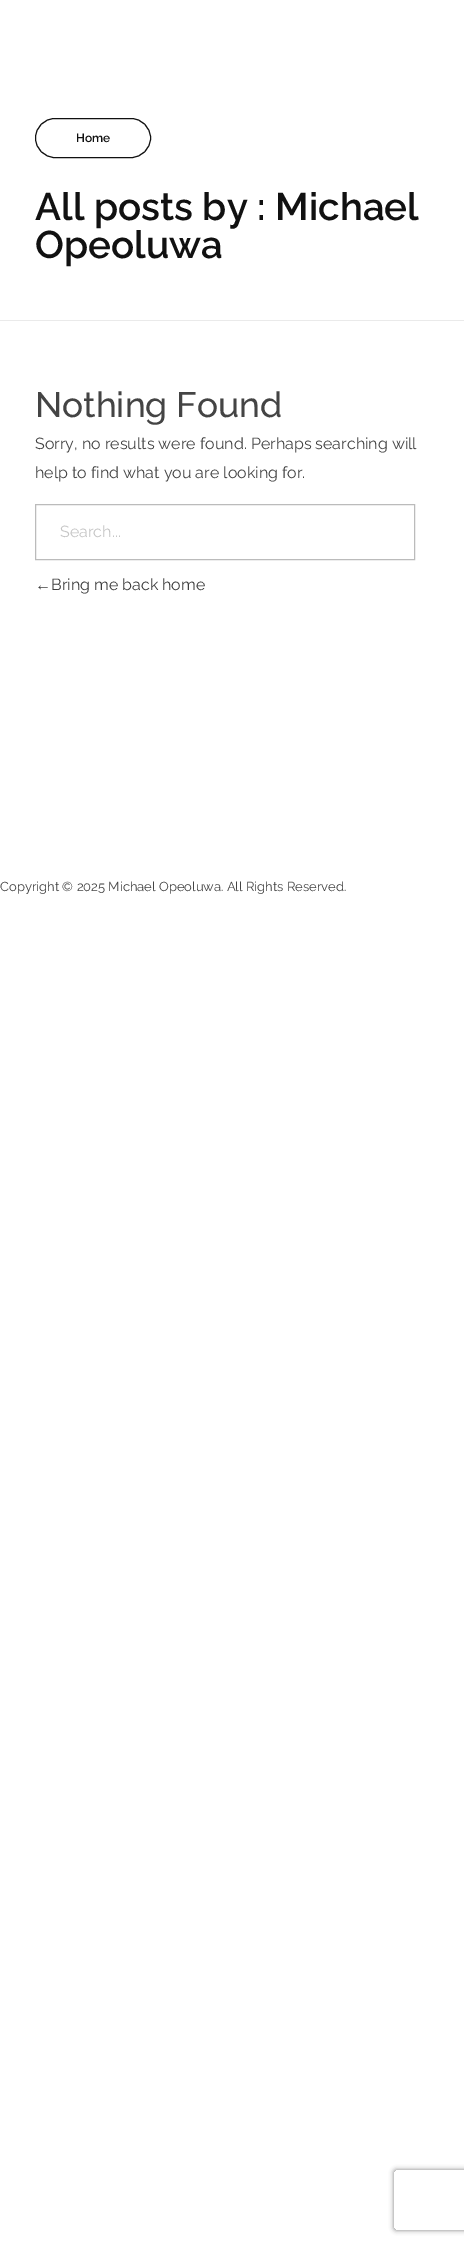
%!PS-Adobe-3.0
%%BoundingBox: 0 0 464 2244
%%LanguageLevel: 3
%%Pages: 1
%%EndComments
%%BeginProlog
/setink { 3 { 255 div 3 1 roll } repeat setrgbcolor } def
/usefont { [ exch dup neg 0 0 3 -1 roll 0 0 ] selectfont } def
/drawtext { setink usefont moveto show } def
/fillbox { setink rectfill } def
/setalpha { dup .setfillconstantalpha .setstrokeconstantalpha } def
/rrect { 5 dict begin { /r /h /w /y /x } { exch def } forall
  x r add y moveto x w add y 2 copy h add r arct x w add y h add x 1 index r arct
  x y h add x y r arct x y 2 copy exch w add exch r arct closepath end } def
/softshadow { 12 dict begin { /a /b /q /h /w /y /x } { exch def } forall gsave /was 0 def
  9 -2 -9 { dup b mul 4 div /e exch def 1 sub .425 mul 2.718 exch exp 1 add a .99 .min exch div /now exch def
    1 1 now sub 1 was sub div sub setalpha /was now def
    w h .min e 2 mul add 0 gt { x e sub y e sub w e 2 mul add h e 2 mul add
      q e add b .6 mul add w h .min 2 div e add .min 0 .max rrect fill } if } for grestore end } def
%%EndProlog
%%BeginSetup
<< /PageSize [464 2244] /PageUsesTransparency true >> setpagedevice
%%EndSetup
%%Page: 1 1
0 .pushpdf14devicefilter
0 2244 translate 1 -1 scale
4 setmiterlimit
0 0 464 2244 255 255 255 fillbox
0 320 464 1 234 234 234 fillbox
17 17 17 setink
35.5 118.5 115 39 19.5 rrect stroke
(Home) 76 142 /Raleway-SemiBold 12 17 17 17 drawtext
(All posts by : Michael) 35 220 /Raleway-SemiBold 38.5 17 17 17 drawtext
(Opeoluwa) 35 258 /Raleway-SemiBold 38.5 17 17 17 drawtext
(Nothing Found) 35 417 /Raleway-Medium 35.25 68 68 68 drawtext
(Sorry, no results were found. Perhaps searching will) 35 449 /Raleway-Regular 16 68 68 68 drawtext
(help to find what you are looking for.) 35 478 /Raleway-Regular 16 68 68 68 drawtext
187 187 187 setink
35.5 504.5 379 55 rectstroke
(Search...) 60 537 /Raleway-Regular 16 197 197 197 drawtext
(←) 35 590 /LiberationSans-Regular 16 61 61 61 drawtext
(Bring me back home) 51 590 /Raleway-Regular 16 61 61 61 drawtext
(Copyright © 2025 Michael Opeoluwa. All Rights Reserved.) 0 891 /Raleway-Regular 13 68 68 68 drawtext
gsave
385 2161 moveto 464 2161 lineto 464 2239 lineto 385 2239 lineto closepath 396 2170 moveto 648 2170 lineto 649 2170 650 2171 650 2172 curveto 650 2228 lineto 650 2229 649 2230 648 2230 curveto 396 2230 lineto 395 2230 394 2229 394 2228 curveto 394 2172 lineto 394 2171 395 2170 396 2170 curveto closepath eoclip newpath
128 128 128 setink
394 2170 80 60 2 2.5 1 softshadow
grestore
.poppdf14devicefilter showpage
%%EOF
